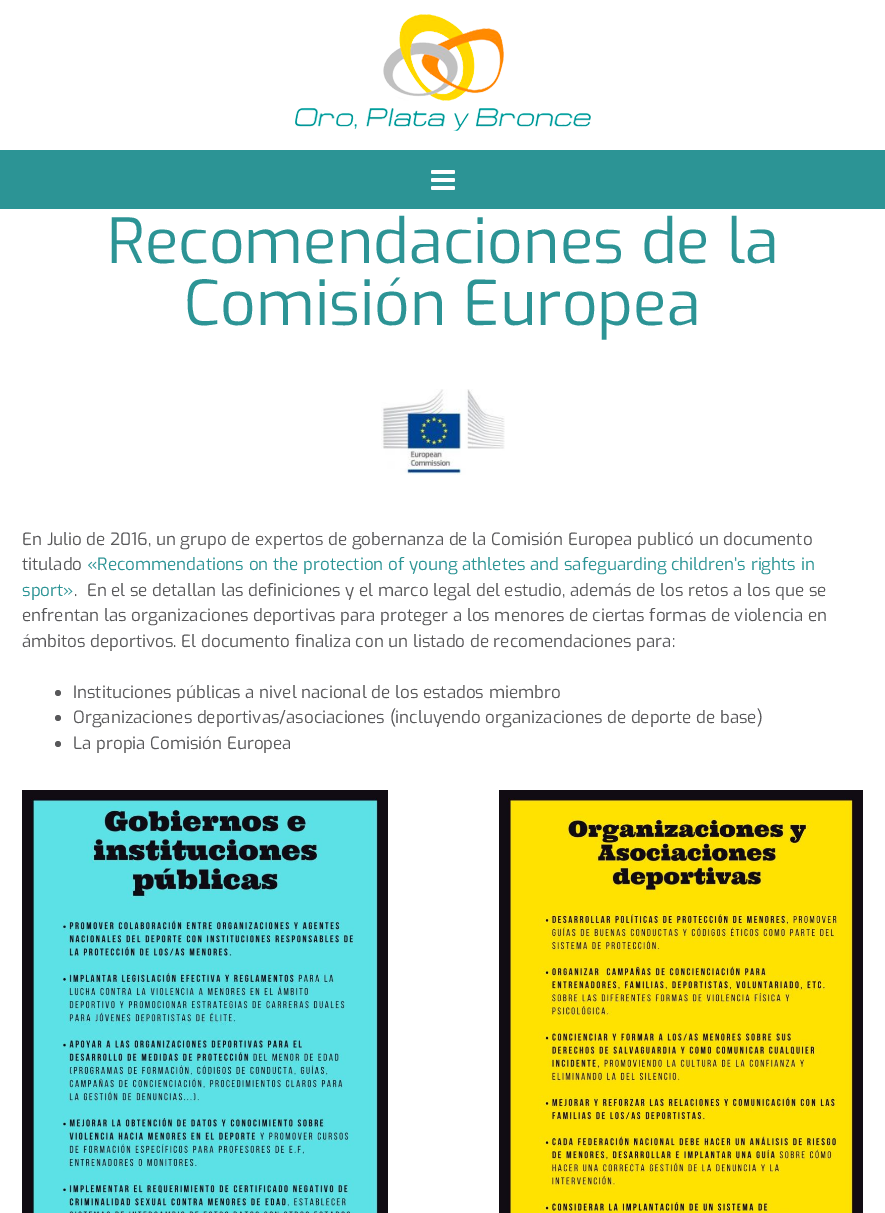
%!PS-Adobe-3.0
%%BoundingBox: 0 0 885 1213
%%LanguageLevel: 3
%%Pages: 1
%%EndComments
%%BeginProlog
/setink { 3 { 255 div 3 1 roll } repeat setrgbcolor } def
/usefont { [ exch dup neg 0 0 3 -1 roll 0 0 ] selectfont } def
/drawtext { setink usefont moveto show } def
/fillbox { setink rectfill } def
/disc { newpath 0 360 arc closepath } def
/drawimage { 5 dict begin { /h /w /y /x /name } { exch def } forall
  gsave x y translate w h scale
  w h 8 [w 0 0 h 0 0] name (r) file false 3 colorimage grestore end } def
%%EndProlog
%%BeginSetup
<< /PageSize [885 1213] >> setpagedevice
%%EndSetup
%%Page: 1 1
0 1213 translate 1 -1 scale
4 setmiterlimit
0 0 885 1213 255 255 255 fillbox
(assets/img1.rgb) 295 14 296 117 drawimage
0 150 885 59 44 148 149 fillbox
(assets/img2.rgb) 431 170 24 20 drawimage
(Recomendaciones de la) 107 263 /Exo-Regular 62 44 148 149 drawtext
(Comisión Europea) 184 325 /Exo-Regular 62 44 148 149 drawtext
(assets/img3.rgb) 381 389 124 86 drawimage
(En Julio de 2016, un grupo de expertos de gobernanza de la Comisión Europea publicó un documento) 22 545 /Exo-Regular 17 88 88 90 drawtext
(titulado) 22 570 /Exo-Regular 17 88 88 90 drawtext
(«Recommendations on the protection of young athletes and safeguarding children’s rights in) 87 570 /Exo-Regular 17 44 148 149 drawtext
(sport») 22 596 /Exo-Regular 17 44 148 149 drawtext
(.  En el se detallan las definiciones y el marco legal del estudio, además de los retos a los que se) 74 596 /Exo-Regular 17 88 88 90 drawtext
(enfrentan las organizaciones deportivas para proteger a los menores de ciertas formas de violencia en) 22 621 /Exo-Regular 17 88 88 90 drawtext
(ámbitos deportivos. El documento finaliza con un listado de recomendaciones para:) 22 647 /Exo-Regular 17 88 88 90 drawtext
58 693 3 disc fill
(Instituciones públicas a nivel nacional de los estados miembro) 73 698 /Exo-Regular 17 88 88 90 drawtext
58 718 3 disc fill
(Organizaciones deportivas/asociaciones \(incluyendo organizaciones de deporte de base\)) 73 723 /Exo-Regular 17 88 88 90 drawtext
58 744 3 disc fill
(La propia Comisión Europea) 73 749 /Exo-Regular 17 88 88 90 drawtext
(assets/img4.rgb) 22 790 366 423 drawimage
(assets/img5.rgb) 499 790 364 423 drawimage
showpage
%%EOF
